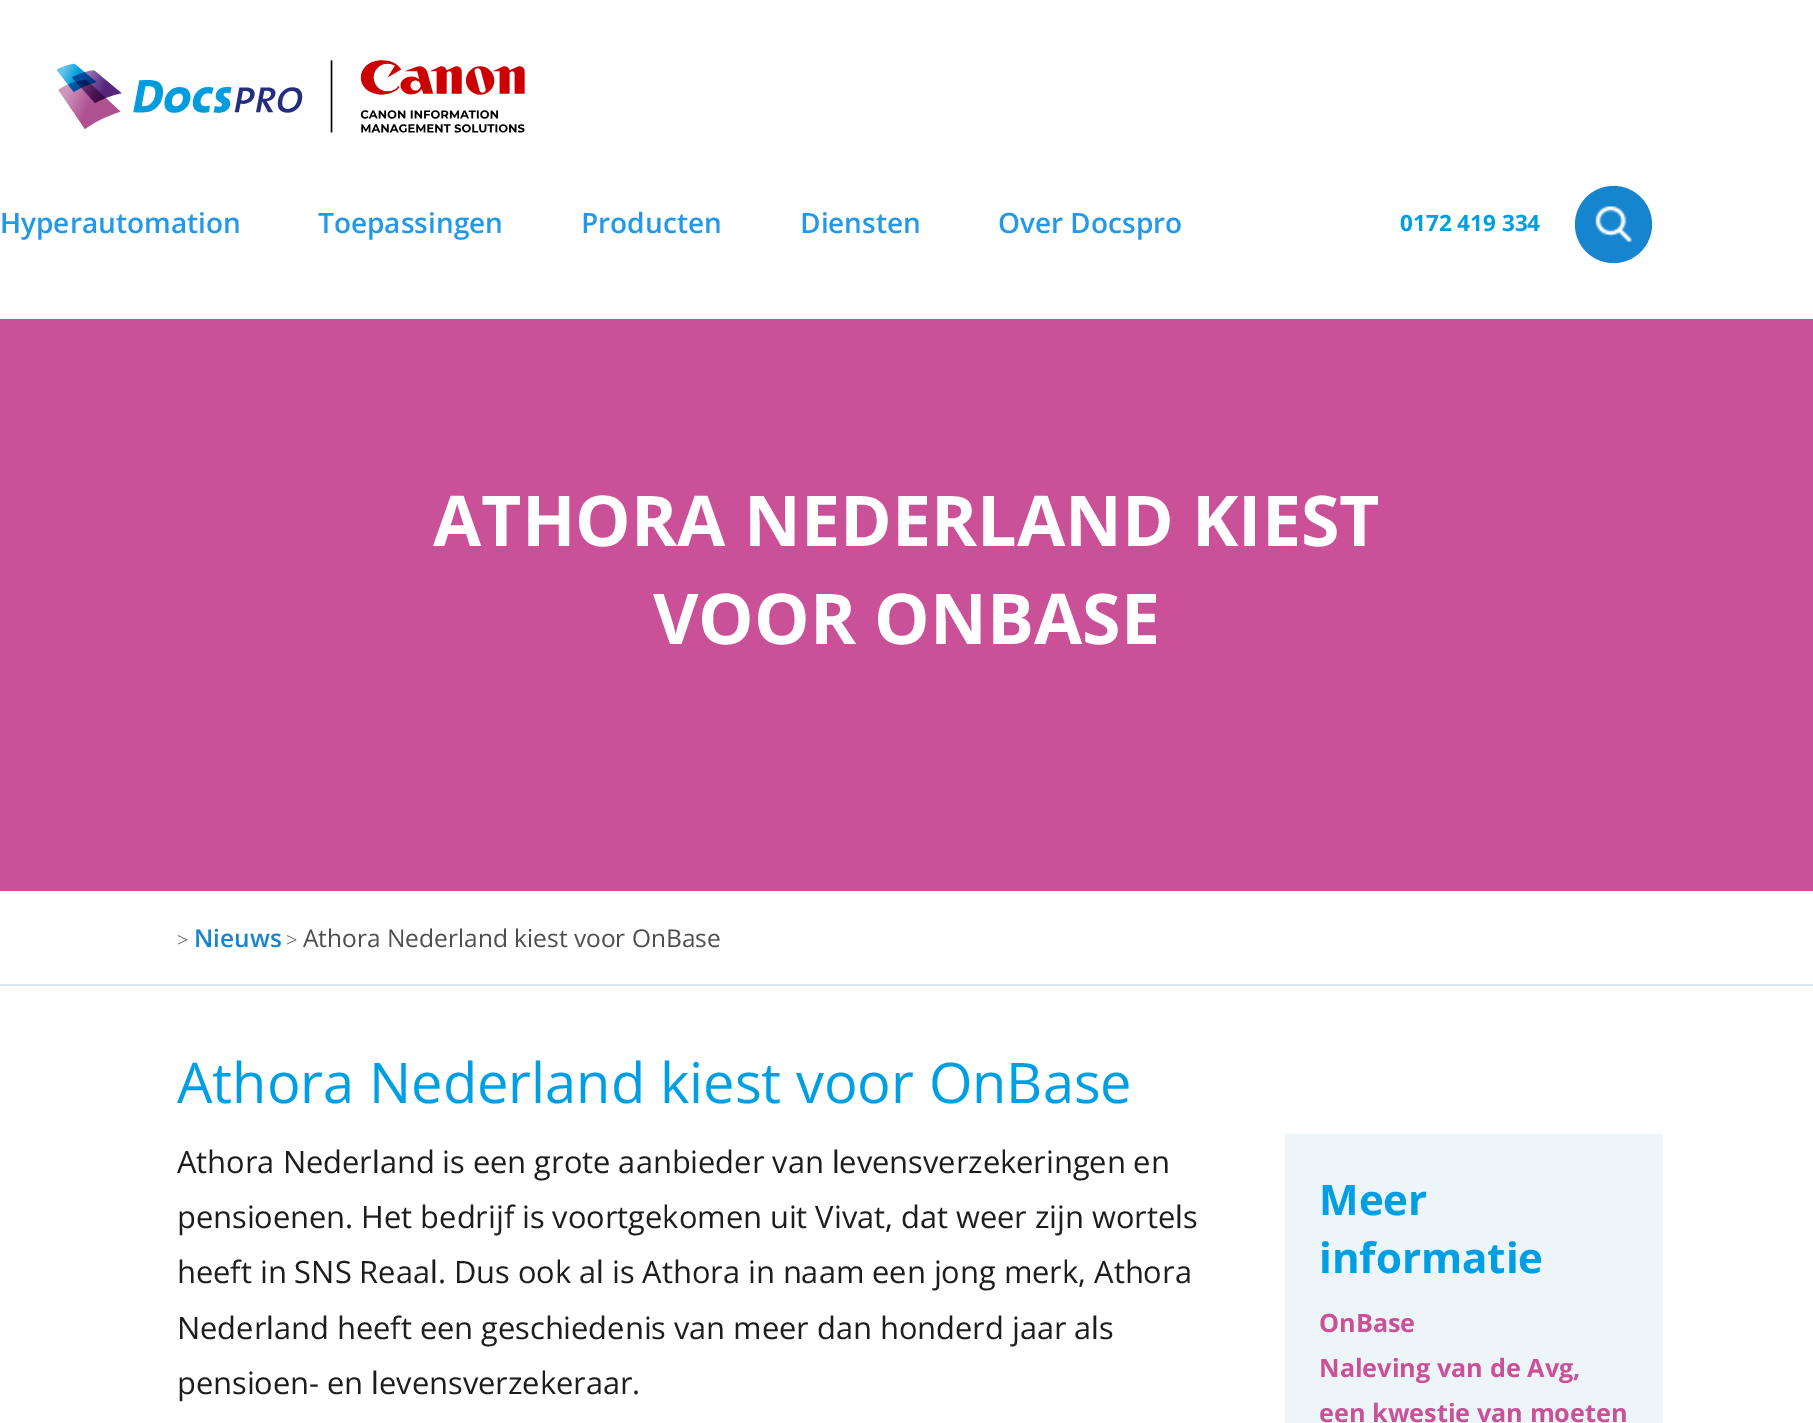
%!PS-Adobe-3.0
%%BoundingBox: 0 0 1813 1423
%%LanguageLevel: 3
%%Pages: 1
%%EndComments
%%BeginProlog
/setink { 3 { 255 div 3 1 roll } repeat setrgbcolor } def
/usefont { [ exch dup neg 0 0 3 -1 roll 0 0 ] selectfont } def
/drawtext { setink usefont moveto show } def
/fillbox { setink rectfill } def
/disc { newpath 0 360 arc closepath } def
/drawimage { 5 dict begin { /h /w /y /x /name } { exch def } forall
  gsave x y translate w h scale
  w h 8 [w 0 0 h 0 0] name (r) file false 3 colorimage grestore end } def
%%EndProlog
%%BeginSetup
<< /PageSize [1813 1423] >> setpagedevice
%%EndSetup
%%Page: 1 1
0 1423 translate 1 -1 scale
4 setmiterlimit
0 0 1813 1423 255 255 255 fillbox
(assets/img1.rgb) 56 60 469 73 drawimage
(Hyperautomation) 0 233 /OpenSans-SemiBold 28 33 153 232 drawtext
(Toepassingen) 318 233 /OpenSans-SemiBold 28 33 153 232 drawtext
(Producten) 581 233 /OpenSans-SemiBold 28 33 153 232 drawtext
(Diensten) 800 233 /OpenSans-SemiBold 28 33 153 232 drawtext
(Over Docspro) 998 233 /OpenSans-SemiBold 28 33 153 232 drawtext
(0172 419 334) 1400 231 /OpenSans-Bold 22.5 0 159 227 drawtext
21 133 207 setink
1613.5 224.5 38.5 disc fill
(assets/img2.rgb) 1595 206 37 36 drawimage
0 319 1813 572 202 80 151 fillbox
(ATHORA NEDERLAND KIEST) 433 546 /OpenSans-Bold 70 255 255 255 drawtext
(VOOR ONBASE) 653 644 /OpenSans-Bold 70 255 255 255 drawtext
0 984 1813 2 215 234 247 fillbox
(>) 177 947 /OpenSans-Light 20 78 78 78 drawtext
(Nieuws) 194 947 /OpenSans-SemiBold 24.5 21 133 207 drawtext
(>) 286 947 /OpenSans-Light 20 78 78 78 drawtext
(Athora Nederland kiest voor OnBase) 303 947 /OpenSans-Regular 24.5 78 78 78 drawtext
(Athora Nederland kiest voor OnBase) 177 1103 /OpenSans-Regular 56 0 159 227 drawtext
(Athora Nederland is een grote aanbieder van levensverzekeringen en) 177 1173 /OpenSans-Regular 30.8 29 29 27 drawtext
(pensioenen. Het bedrijf is voortgekomen uit Vivat, dat weer zijn wortels) 177 1228 /OpenSans-Regular 30.8 29 29 27 drawtext
(heeft in SNS Reaal. Dus ook al is Athora in naam een jong merk, Athora) 177 1283 /OpenSans-Regular 30.8 29 29 27 drawtext
(Nederland heeft een geschiedenis van meer dan honderd jaar als) 177 1339 /OpenSans-Regular 30.8 29 29 27 drawtext
(pensioen- en levensverzekeraar.) 177 1394 /OpenSans-Regular 30.8 29 29 27 drawtext
1285 1134 378 289 237 245 249 fillbox
(Meer) 1319 1215 /OpenSans-Bold 42 0 159 227 drawtext
(informatie) 1319 1273 /OpenSans-Bold 42 0 159 227 drawtext
(OnBase) 1319 1332 /OpenSans-Bold 25.25 202 80 151 drawtext
(Naleving van de Avg,) 1319 1377 /OpenSans-Bold 25.25 202 80 151 drawtext
(een kwestie van moeten) 1319 1422 /OpenSans-Bold 25.25 202 80 151 drawtext
showpage
%%EOF
